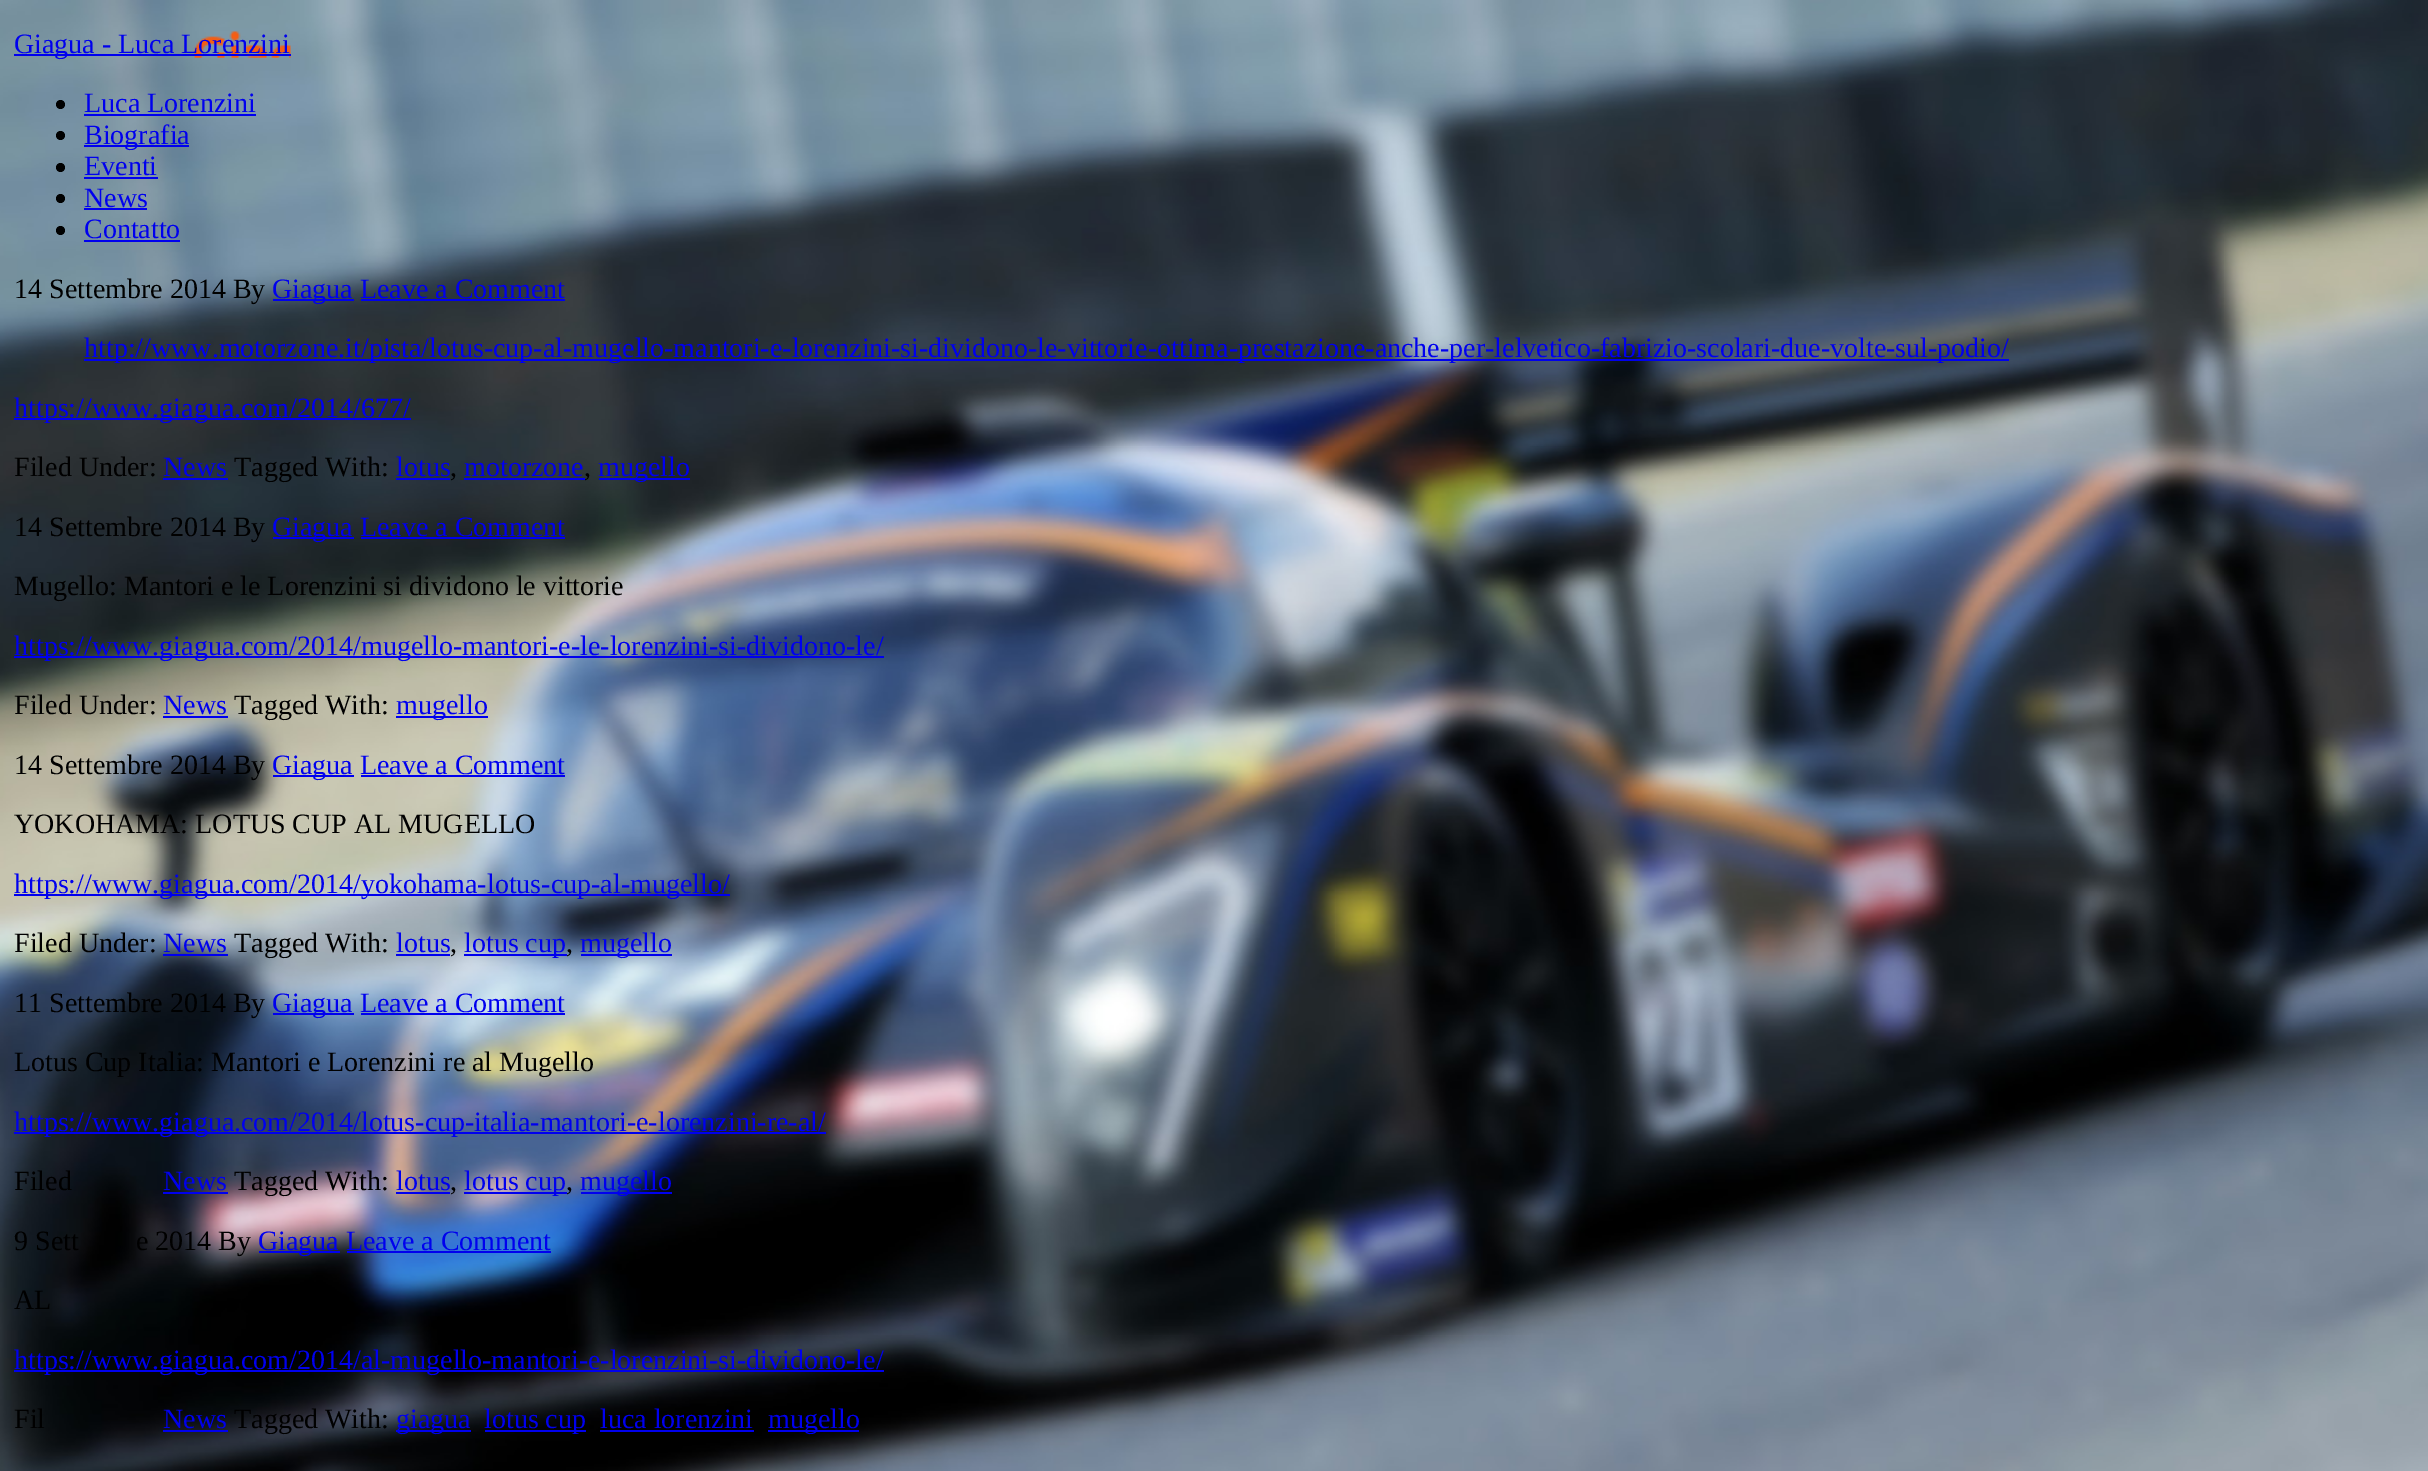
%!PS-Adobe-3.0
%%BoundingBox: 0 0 2428 1471
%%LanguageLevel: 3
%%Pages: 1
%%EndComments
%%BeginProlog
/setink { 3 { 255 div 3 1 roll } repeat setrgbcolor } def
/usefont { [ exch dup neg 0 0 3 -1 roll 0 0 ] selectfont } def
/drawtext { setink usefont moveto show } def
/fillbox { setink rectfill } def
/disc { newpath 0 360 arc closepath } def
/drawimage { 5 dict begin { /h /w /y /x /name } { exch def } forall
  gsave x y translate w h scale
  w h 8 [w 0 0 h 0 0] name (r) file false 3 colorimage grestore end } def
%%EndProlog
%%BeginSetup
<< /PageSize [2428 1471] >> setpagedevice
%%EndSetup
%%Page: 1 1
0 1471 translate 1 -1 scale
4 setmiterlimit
0 0 2428 1471 255 255 255 fillbox
(assets/img1.rgb) 0 0 2428 1471 drawimage
(assets/img2.rgb) 194 31 97 27 drawimage
14 54 277 2 0 0 238 fillbox
(Giagua - Luca Lorenzini) 14 53 /LiberationSerif-Regular 28 0 0 238 drawtext
0 0 0 setink
60.5 104.5 4.5 disc fill
(Luca Lorenzini) 84 112 /LiberationSerif-Regular 28 0 0 238 drawtext
84 114 172 2 0 0 238 fillbox
0 0 0 setink
60.5 135.5 4.5 disc fill
84 145 105 2 0 0 238 fillbox
(Biografia) 84 144 /LiberationSerif-Regular 28 0 0 238 drawtext
0 0 0 setink
60.5 167.5 4.5 disc fill
(Eventi) 84 175 /LiberationSerif-Regular 28 0 0 238 drawtext
84 177 74 2 0 0 238 fillbox
0 0 0 setink
60.5 198.5 4.5 disc fill
(News) 84 207 /LiberationSerif-Regular 28 0 0 238 drawtext
84 208 63 2 0 0 238 fillbox
0 0 0 setink
60.5 230.5 4.5 disc fill
(Contatto) 84 238 /LiberationSerif-Regular 28 0 0 238 drawtext
84 240 96 2 0 0 238 fillbox
(14 Settembre 2014 By) 14 298 /LiberationSerif-Regular 28 0 0 0 drawtext
273 299 81 2 0 0 238 fillbox
(Giagua Leave a Comment) 272 298 /LiberationSerif-Regular 28 0 0 238 drawtext
361 299 204 2 0 0 238 fillbox
84 359 1925 2 0 0 238 fillbox
(http://www.motorzone.it/pista/lotus-cup-al-mugello-mantori-e-lorenzini-si-dividono-le-vittorie-ottima-prestazione-anche-per-lelvetico-fabrizio-scolari-due-volte-sul-podio/) 84 357 /LiberationSerif-Regular 28 0 0 238 drawtext
14 418 397 2 0 0 238 fillbox
(https://www.giagua.com/2014/677/) 14 417 /LiberationSerif-Regular 28 0 0 238 drawtext
(Filed Under:) 14 476 /LiberationSerif-Regular 28 0 0 0 drawtext
(News) 163 476 /LiberationSerif-Regular 28 0 0 238 drawtext
163 478 65 2 0 0 238 fillbox
(Tagged With:) 234 476 /LiberationSerif-Regular 28 0 0 0 drawtext
(lotus) 396 476 /LiberationSerif-Regular 28 0 0 238 drawtext
(,) 450 476 /LiberationSerif-Regular 28 0 0 0 drawtext
396 478 54 2 0 0 238 fillbox
(motorzone) 464 476 /LiberationSerif-Regular 28 0 0 238 drawtext
(,) 584 476 /LiberationSerif-Regular 28 0 0 0 drawtext
464 478 121 2 0 0 238 fillbox
599 478 91 2 0 0 238 fillbox
(mugello) 598 476 /LiberationSerif-Regular 28 0 0 238 drawtext
(14 Settembre 2014 By) 14 536 /LiberationSerif-Regular 28 0 0 0 drawtext
273 537 81 2 0 0 238 fillbox
(Giagua Leave a Comment) 272 536 /LiberationSerif-Regular 28 0 0 238 drawtext
361 537 204 2 0 0 238 fillbox
(Mugello: Mantori e le Lorenzini si dividono le vittorie) 14 595 /LiberationSerif-Regular 28 0 0 0 drawtext
14 656 870 2 0 0 238 fillbox
(https://www.giagua.com/2014/mugello-mantori-e-le-lorenzini-si-dividono-le/) 14 655 /LiberationSerif-Regular 28 0 0 238 drawtext
(Filed Under:) 14 714 /LiberationSerif-Regular 28 0 0 0 drawtext
(News) 163 714 /LiberationSerif-Regular 28 0 0 238 drawtext
163 716 65 2 0 0 238 fillbox
(Tagged With:) 234 714 /LiberationSerif-Regular 28 0 0 0 drawtext
396 716 92 2 0 0 238 fillbox
(mugello) 396 714 /LiberationSerif-Regular 28 0 0 238 drawtext
(14 Settembre 2014 By) 14 774 /LiberationSerif-Regular 28 0 0 0 drawtext
273 775 81 2 0 0 238 fillbox
(Giagua Leave a Comment) 272 774 /LiberationSerif-Regular 28 0 0 238 drawtext
361 775 204 2 0 0 238 fillbox
(YOKOHAMA: LOTUS CUP AL MUGELLO) 14 833 /LiberationSerif-Regular 28 0 0 0 drawtext
14 894 716 2 0 0 238 fillbox
(https://www.giagua.com/2014/yokohama-lotus-cup-al-mugello/) 14 893 /LiberationSerif-Regular 28 0 0 238 drawtext
(Filed Under:) 14 952 /LiberationSerif-Regular 28 0 0 0 drawtext
(News) 163 952 /LiberationSerif-Regular 28 0 0 238 drawtext
163 954 65 2 0 0 238 fillbox
(Tagged With:) 234 952 /LiberationSerif-Regular 28 0 0 0 drawtext
(lotus) 396 952 /LiberationSerif-Regular 28 0 0 238 drawtext
(,) 450 952 /LiberationSerif-Regular 28 0 0 0 drawtext
396 954 54 2 0 0 238 fillbox
464 954 103 2 0 0 238 fillbox
(lotus cup) 464 952 /LiberationSerif-Regular 28 0 0 238 drawtext
(,) 566 952 /LiberationSerif-Regular 28 0 0 0 drawtext
581 954 91 2 0 0 238 fillbox
(mugello) 580 952 /LiberationSerif-Regular 28 0 0 238 drawtext
(11 Settembre 2014 By) 14 1012 /LiberationSerif-Regular 28 0 0 0 drawtext
273 1013 81 2 0 0 238 fillbox
(Giagua Leave a Comment) 272 1012 /LiberationSerif-Regular 28 0 0 238 drawtext
361 1013 204 2 0 0 238 fillbox
(Lotus Cup Italia: Mantori e Lorenzini re al Mugello) 14 1071 /LiberationSerif-Regular 28 0 0 0 drawtext
14 1132 812 2 0 0 238 fillbox
(https://www.giagua.com/2014/lotus-cup-italia-mantori-e-lorenzini-re-al/) 14 1131 /LiberationSerif-Regular 28 0 0 238 drawtext
(Filed) 14 1190 /LiberationSerif-Regular 28 0 0 0 drawtext
(News) 163 1190 /LiberationSerif-Regular 28 0 0 238 drawtext
163 1192 65 2 0 0 238 fillbox
(Tagged With:) 234 1190 /LiberationSerif-Regular 28 0 0 0 drawtext
(lotus) 396 1190 /LiberationSerif-Regular 28 0 0 238 drawtext
(,) 450 1190 /LiberationSerif-Regular 28 0 0 0 drawtext
396 1192 54 2 0 0 238 fillbox
464 1192 103 2 0 0 238 fillbox
(lotus cup) 464 1190 /LiberationSerif-Regular 28 0 0 238 drawtext
(,) 566 1190 /LiberationSerif-Regular 28 0 0 0 drawtext
581 1192 91 2 0 0 238 fillbox
(mugello) 580 1190 /LiberationSerif-Regular 28 0 0 238 drawtext
(9 Sett) 14 1250 /LiberationSerif-Regular 28 0 0 0 drawtext
(e 2014 By) 136 1250 /LiberationSerif-Regular 28 0 0 0 drawtext
259 1251 81 2 0 0 238 fillbox
(Giagua Leave a Comment) 258 1250 /LiberationSerif-Regular 28 0 0 238 drawtext
347 1251 204 2 0 0 238 fillbox
(AL) 14 1309 /LiberationSerif-Regular 28 0 0 0 drawtext
14 1370 870 2 0 0 238 fillbox
(https://www.giagua.com/2014/al-mugello-mantori-e-lorenzini-si-dividono-le/) 14 1369 /LiberationSerif-Regular 28 0 0 238 drawtext
(Fil) 14 1428 /LiberationSerif-Regular 28 0 0 0 drawtext
(News) 163 1428 /LiberationSerif-Regular 28 0 0 238 drawtext
163 1430 65 2 0 0 238 fillbox
(Tagged With:) 234 1428 /LiberationSerif-Regular 28 0 0 0 drawtext
396 1430 75 2 0 0 238 fillbox
(giagua) 396 1428 /LiberationSerif-Regular 28 0 0 238 drawtext
485 1430 101 2 0 0 238 fillbox
(lotus cup) 484 1428 /LiberationSerif-Regular 28 0 0 238 drawtext
(luca lorenzini) 600 1428 /LiberationSerif-Regular 28 0 0 238 drawtext
600 1430 154 2 0 0 238 fillbox
768 1430 91 2 0 0 238 fillbox
(mugello) 768 1428 /LiberationSerif-Regular 28 0 0 238 drawtext
showpage
%%EOF
